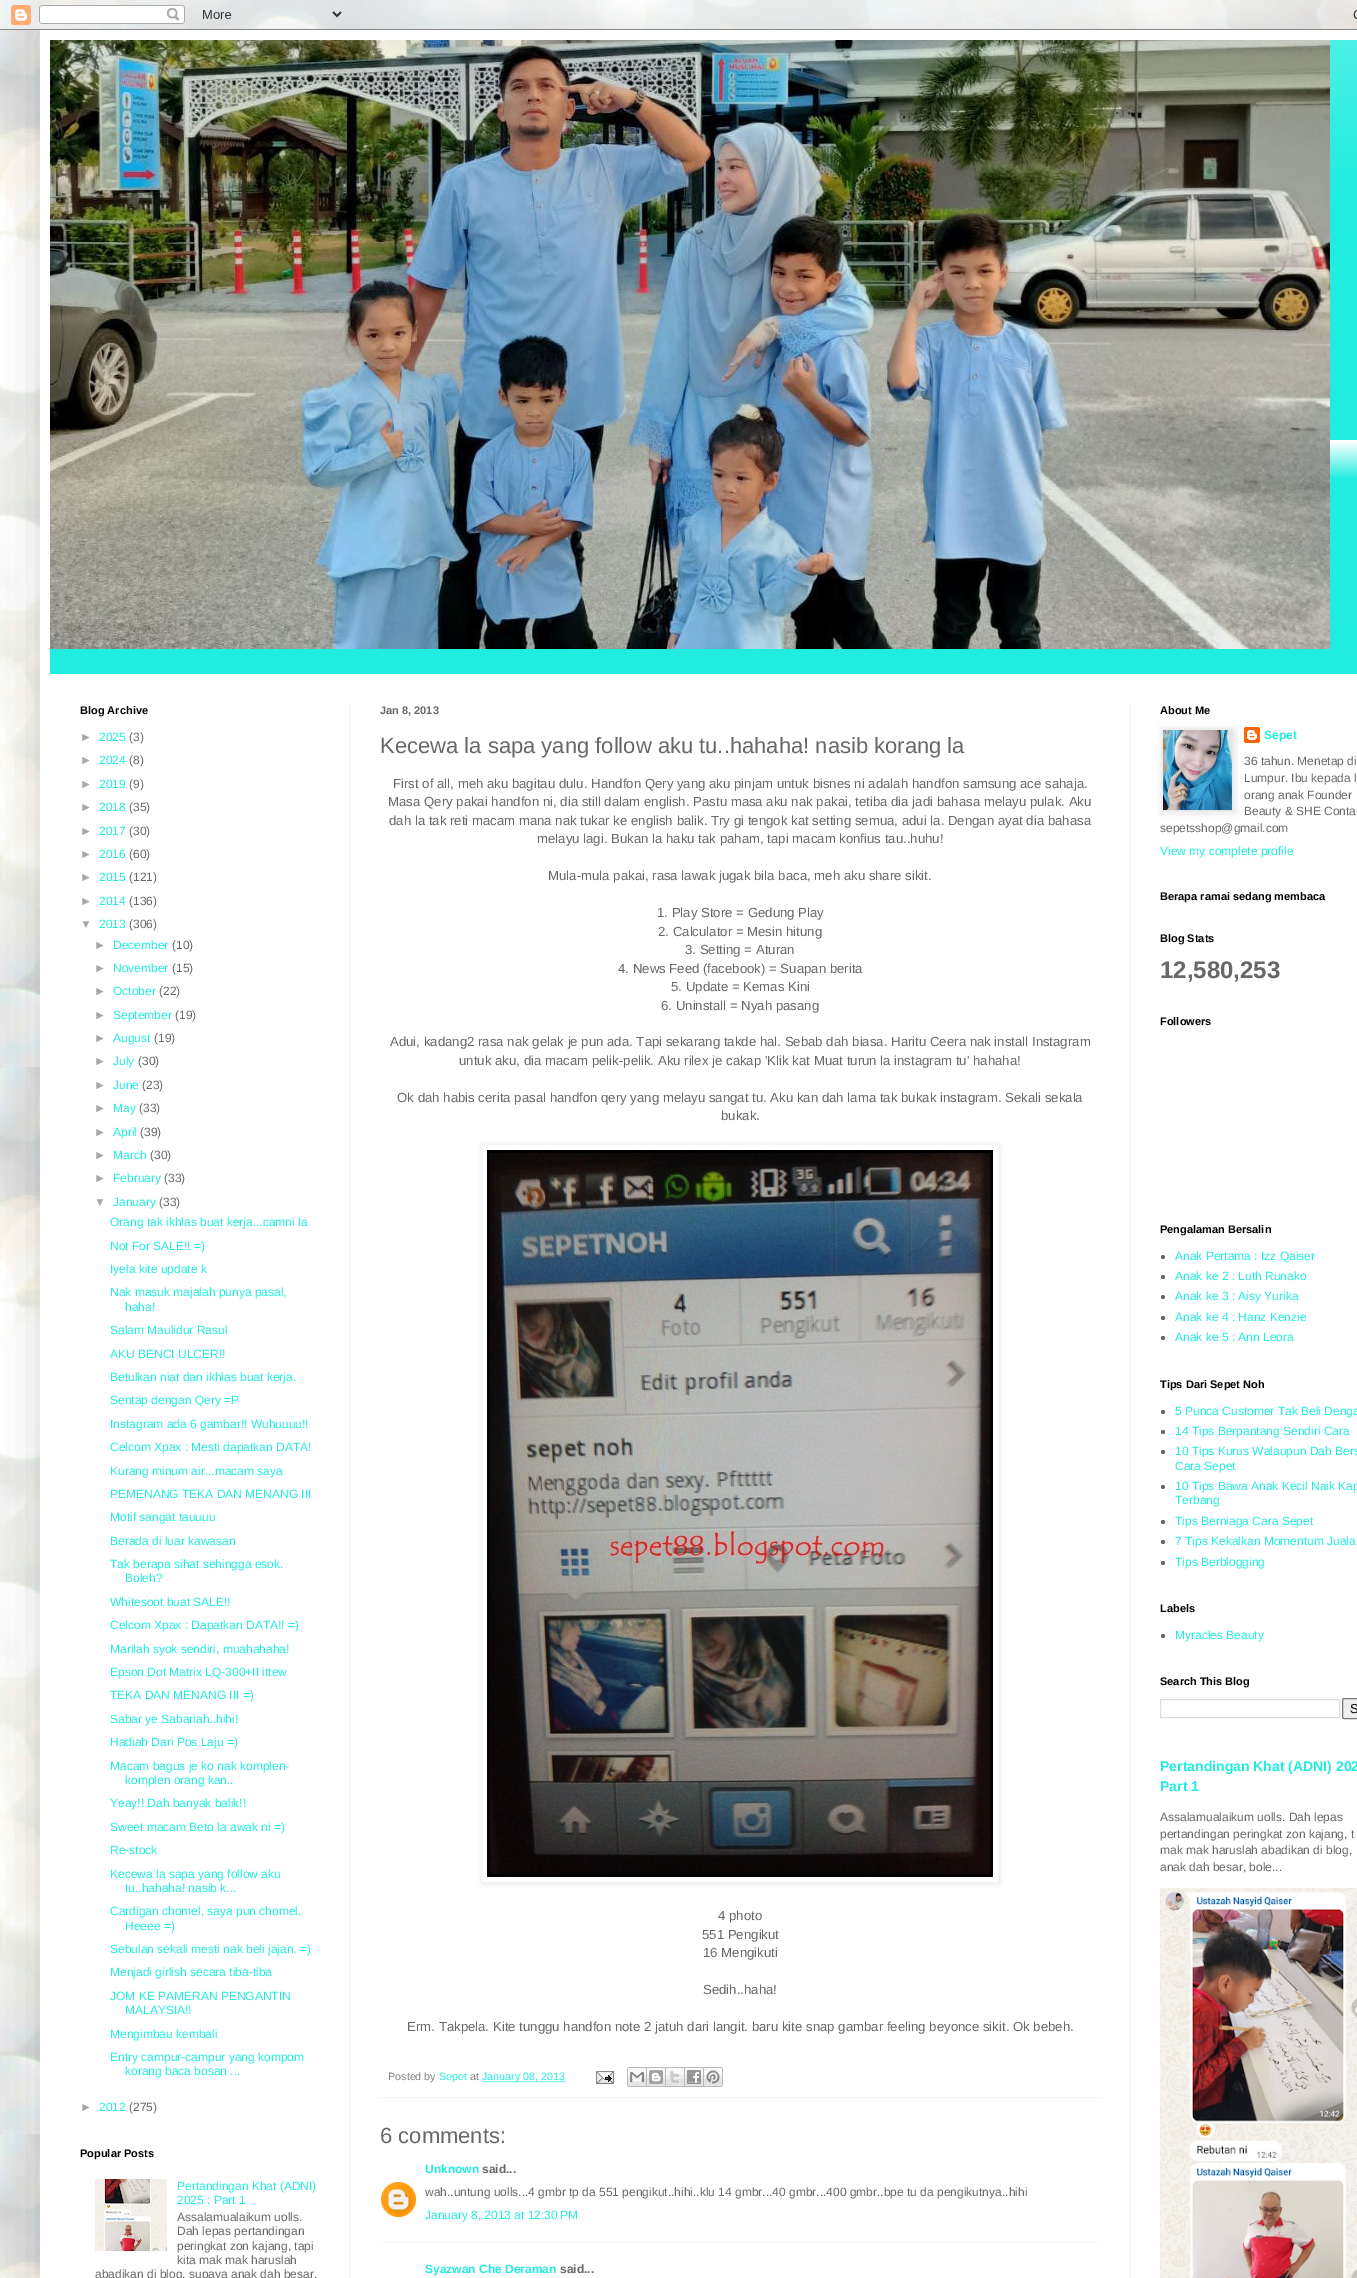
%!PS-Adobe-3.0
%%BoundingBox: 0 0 1357 2278
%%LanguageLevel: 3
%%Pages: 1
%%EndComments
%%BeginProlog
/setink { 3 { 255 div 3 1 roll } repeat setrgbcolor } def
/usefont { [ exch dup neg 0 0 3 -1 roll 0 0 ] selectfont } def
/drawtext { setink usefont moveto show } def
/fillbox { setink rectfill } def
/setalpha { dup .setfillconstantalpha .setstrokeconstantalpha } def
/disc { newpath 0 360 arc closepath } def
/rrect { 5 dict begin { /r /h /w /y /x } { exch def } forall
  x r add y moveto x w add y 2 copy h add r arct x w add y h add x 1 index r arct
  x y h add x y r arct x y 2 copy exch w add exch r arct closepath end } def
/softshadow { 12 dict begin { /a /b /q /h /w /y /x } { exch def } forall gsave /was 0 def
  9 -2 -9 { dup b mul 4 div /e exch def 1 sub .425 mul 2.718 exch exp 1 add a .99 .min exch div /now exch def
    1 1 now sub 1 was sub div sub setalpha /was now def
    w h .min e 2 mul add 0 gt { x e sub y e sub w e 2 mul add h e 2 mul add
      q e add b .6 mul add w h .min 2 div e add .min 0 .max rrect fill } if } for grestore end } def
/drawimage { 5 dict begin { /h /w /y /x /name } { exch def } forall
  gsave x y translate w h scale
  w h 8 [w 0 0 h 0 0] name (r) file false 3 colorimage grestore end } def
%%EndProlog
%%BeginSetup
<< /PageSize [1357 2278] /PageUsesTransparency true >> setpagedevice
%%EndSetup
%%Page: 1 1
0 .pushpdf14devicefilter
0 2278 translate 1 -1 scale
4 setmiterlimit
0 0 1357 2278 255 255 255 fillbox
(assets/img1.rgb) 0 0 1357 2278 drawimage
0 0 0 setink
40 30 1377 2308 0 20 0.15 softshadow
(assets/img2.rgb) 0 0 1357 30 drawimage
40 30 1317 2248 255 255 255 fillbox
50 40 1307 634 32 236 223 fillbox
(assets/img3.rgb) 1330 40 27 438 drawimage
(assets/img4.rgb) 50 40 1280 609 drawimage
349 704 1 1574 244 244 244 fillbox
1130 704 1 1574 244 244 244 fillbox
(Blog Archive) 80 714 /LiberationSans-Bold 11 0 0 0 drawtext
(►) 80 741 /LiberationSans-Regular 12 167 167 167 drawtext
(2025) 99 741 /LiberationSans-Regular 12 32 236 223 drawtext
(\(3\)) 129 741 /LiberationSans-Regular 12 103 103 103 drawtext
(►) 80 764 /LiberationSans-Regular 12 167 167 167 drawtext
(2024) 99 764 /LiberationSans-Regular 12 32 236 223 drawtext
(\(8\)) 129 764 /LiberationSans-Regular 12 103 103 103 drawtext
(►) 80 788 /LiberationSans-Regular 12 167 167 167 drawtext
(2019) 99 788 /LiberationSans-Regular 12 32 236 223 drawtext
(\(9\)) 129 788 /LiberationSans-Regular 12 103 103 103 drawtext
(►) 80 811 /LiberationSans-Regular 12 167 167 167 drawtext
(2018) 99 811 /LiberationSans-Regular 12 32 236 223 drawtext
(\(35\)) 129 811 /LiberationSans-Regular 12 103 103 103 drawtext
(►) 80 835 /LiberationSans-Regular 12 167 167 167 drawtext
(2017) 99 835 /LiberationSans-Regular 12 32 236 223 drawtext
(\(30\)) 129 835 /LiberationSans-Regular 12 103 103 103 drawtext
(►) 80 858 /LiberationSans-Regular 12 167 167 167 drawtext
(2016) 99 858 /LiberationSans-Regular 12 32 236 223 drawtext
(\(60\)) 129 858 /LiberationSans-Regular 12 103 103 103 drawtext
(►) 80 881 /LiberationSans-Regular 12 167 167 167 drawtext
(2015) 99 881 /LiberationSans-Regular 12 32 236 223 drawtext
(\(121\)) 129 881 /LiberationSans-Regular 12 103 103 103 drawtext
(►) 80 905 /LiberationSans-Regular 12 167 167 167 drawtext
(2014) 99 905 /LiberationSans-Regular 12 32 236 223 drawtext
(\(136\)) 129 905 /LiberationSans-Regular 12 103 103 103 drawtext
(▼) 80 928 /LiberationSans-Regular 12 167 167 167 drawtext
(2013) 99 928 /LiberationSans-Regular 12 32 236 223 drawtext
(\(306\)) 129 928 /LiberationSans-Regular 12 103 103 103 drawtext
(►) 94 949 /LiberationSans-Regular 12 167 167 167 drawtext
(December) 113 949 /LiberationSans-Regular 12 32 236 223 drawtext
(\(10\)) 172 949 /LiberationSans-Regular 12 103 103 103 drawtext
(►) 94 972 /LiberationSans-Regular 12 167 167 167 drawtext
(November) 113 972 /LiberationSans-Regular 12 32 236 223 drawtext
(\(15\)) 172 972 /LiberationSans-Regular 12 103 103 103 drawtext
(►) 94 995 /LiberationSans-Regular 12 167 167 167 drawtext
(October) 113 995 /LiberationSans-Regular 12 32 236 223 drawtext
(\(22\)) 159 995 /LiberationSans-Regular 12 103 103 103 drawtext
(►) 94 1019 /LiberationSans-Regular 12 167 167 167 drawtext
(September) 113 1019 /LiberationSans-Regular 12 32 236 223 drawtext
(\(19\)) 175 1019 /LiberationSans-Regular 12 103 103 103 drawtext
(►) 94 1042 /LiberationSans-Regular 12 167 167 167 drawtext
(August) 113 1042 /LiberationSans-Regular 12 32 236 223 drawtext
(\(19\)) 154 1042 /LiberationSans-Regular 12 103 103 103 drawtext
(►) 94 1065 /LiberationSans-Regular 12 167 167 167 drawtext
(July) 113 1065 /LiberationSans-Regular 12 32 236 223 drawtext
(\(30\)) 138 1065 /LiberationSans-Regular 12 103 103 103 drawtext
(►) 94 1089 /LiberationSans-Regular 12 167 167 167 drawtext
(June) 113 1089 /LiberationSans-Regular 12 32 236 223 drawtext
(\(23\)) 142 1089 /LiberationSans-Regular 12 103 103 103 drawtext
(►) 94 1112 /LiberationSans-Regular 12 167 167 167 drawtext
(May) 113 1112 /LiberationSans-Regular 12 32 236 223 drawtext
(\(33\)) 139 1112 /LiberationSans-Regular 12 103 103 103 drawtext
(►) 94 1136 /LiberationSans-Regular 12 167 167 167 drawtext
(April) 113 1136 /LiberationSans-Regular 12 32 236 223 drawtext
(\(39\)) 140 1136 /LiberationSans-Regular 12 103 103 103 drawtext
(►) 94 1159 /LiberationSans-Regular 12 167 167 167 drawtext
(March) 113 1159 /LiberationSans-Regular 12 32 236 223 drawtext
(\(30\)) 150 1159 /LiberationSans-Regular 12 103 103 103 drawtext
(►) 94 1182 /LiberationSans-Regular 12 167 167 167 drawtext
(February) 113 1182 /LiberationSans-Regular 12 32 236 223 drawtext
(\(33\)) 164 1182 /LiberationSans-Regular 12 103 103 103 drawtext
(▼) 94 1206 /LiberationSans-Regular 12 167 167 167 drawtext
(January) 113 1206 /LiberationSans-Regular 12 32 236 223 drawtext
(\(33\)) 159 1206 /LiberationSans-Regular 12 103 103 103 drawtext
(Orang tak ikhlas buat kerja...camni la) 110 1226 /LiberationSans-Regular 12 32 236 223 drawtext
(Not For SALE!! =\)) 110 1250 /LiberationSans-Regular 12 32 236 223 drawtext
(Iyela kite update k) 110 1273 /LiberationSans-Regular 12 32 236 223 drawtext
(Nak masuk majalah punya pasal,) 110 1296 /LiberationSans-Regular 12 32 236 223 drawtext
(haha!) 125 1311 /LiberationSans-Regular 12 32 236 223 drawtext
(Salam Maulidur Rasul) 110 1334 /LiberationSans-Regular 12 32 236 223 drawtext
(AKU BENCI ULCER!!) 110 1358 /LiberationSans-Regular 12 32 236 223 drawtext
(Betulkan niat dan ikhlas buat kerja.) 110 1381 /LiberationSans-Regular 12 32 236 223 drawtext
(Sentap dengan Qery =P) 110 1404 /LiberationSans-Regular 12 32 236 223 drawtext
(Instagram ada 6 gambar!! Wuhuuuu!!) 110 1428 /LiberationSans-Regular 12 32 236 223 drawtext
(Celcom Xpax : Mesti dapatkan DATA!) 110 1451 /LiberationSans-Regular 12 32 236 223 drawtext
(Kurang minum air...macam saya) 110 1475 /LiberationSans-Regular 12 32 236 223 drawtext
(PEMENANG TEKA DAN MENANG III) 110 1498 /LiberationSans-Regular 12 32 236 223 drawtext
(Motif sangat tauuuu) 110 1521 /LiberationSans-Regular 12 32 236 223 drawtext
(Berada di luar kawasan) 110 1545 /LiberationSans-Regular 12 32 236 223 drawtext
(Tak berapa sihat sehingga esok.) 110 1568 /LiberationSans-Regular 12 32 236 223 drawtext
(Boleh?) 125 1582 /LiberationSans-Regular 12 32 236 223 drawtext
(Whitesoot buat SALE!!) 110 1606 /LiberationSans-Regular 12 32 236 223 drawtext
(Celcom Xpax : Dapatkan DATA!! =\)) 110 1629 /LiberationSans-Regular 12 32 236 223 drawtext
(Marilah syok sendiri, muahahaha!) 110 1653 /LiberationSans-Regular 12 32 236 223 drawtext
(Epson Dot Matrix LQ-300+II ittew) 110 1676 /LiberationSans-Regular 12 32 236 223 drawtext
(TEKA DAN MENANG III =\)) 110 1699 /LiberationSans-Regular 12 32 236 223 drawtext
(Sabar ye Sabariah..hihi!) 110 1723 /LiberationSans-Regular 12 32 236 223 drawtext
(Hadiah Dari Pos Laju =\)) 110 1746 /LiberationSans-Regular 12 32 236 223 drawtext
(Macam bagus je ko nak komplen-) 110 1770 /LiberationSans-Regular 12 32 236 223 drawtext
(komplen orang kan..) 125 1784 /LiberationSans-Regular 12 32 236 223 drawtext
(Yeay!! Dah banyak balik!!) 110 1807 /LiberationSans-Regular 12 32 236 223 drawtext
(Sweet macam Beto la awak ni =\)) 110 1831 /LiberationSans-Regular 12 32 236 223 drawtext
(Re-stock) 110 1854 /LiberationSans-Regular 12 32 236 223 drawtext
(Kecewa la sapa yang follow aku) 110 1878 /LiberationSans-Regular 12 32 236 223 drawtext
(tu..hahaha! nasib k...) 125 1892 /LiberationSans-Regular 12 32 236 223 drawtext
(Cardigan chomel, saya pun chomel.) 110 1915 /LiberationSans-Regular 12 32 236 223 drawtext
(Heeee =\)) 125 1930 /LiberationSans-Regular 12 32 236 223 drawtext
(Sebulan sekali mesti nak beli jajan. =\)) 110 1953 /LiberationSans-Regular 12 32 236 223 drawtext
(Menjadi girlish secara tiba-tiba) 110 1976 /LiberationSans-Regular 12 32 236 223 drawtext
(JOM KE PAMERAN PENGANTIN) 110 2000 /LiberationSans-Regular 12 32 236 223 drawtext
(MALAYSIA!!) 125 2014 /LiberationSans-Regular 12 32 236 223 drawtext
(Mengimbau kembali) 110 2038 /LiberationSans-Regular 12 32 236 223 drawtext
(Entry campur-campur yang kompom) 110 2061 /LiberationSans-Regular 12 32 236 223 drawtext
(korang baca bosan ...) 125 2075 /LiberationSans-Regular 12 32 236 223 drawtext
(►) 80 2111 /LiberationSans-Regular 12 167 167 167 drawtext
(2012) 99 2111 /LiberationSans-Regular 12 32 236 223 drawtext
(\(275\)) 129 2111 /LiberationSans-Regular 12 103 103 103 drawtext
(Popular Posts) 80 2157 /LiberationSans-Bold 11 0 0 0 drawtext
(assets/img5.rgb) 95 2179 72 72 drawimage
(Pertandingan Khat \(ADNI\)) 177 2190 /LiberationSans-Regular 12 32 236 223 drawtext
(2025 : Part 1) 177 2204 /LiberationSans-Regular 12 32 236 223 drawtext
(Assalamualaikum uolls.) 177 2221 /LiberationSans-Regular 12 103 103 103 drawtext
(Dah lepas pertandingan) 177 2235 /LiberationSans-Regular 12 103 103 103 drawtext
(peringkat zon kajang, tapi) 177 2250 /LiberationSans-Regular 12 103 103 103 drawtext
(kita mak mak haruslah) 177 2264 /LiberationSans-Regular 12 103 103 103 drawtext
(abadikan di blog, supaya anak dah besar,) 95 2278 /LiberationSans-Regular 12 103 103 103 drawtext
(Jan 8, 2013) 380 714 /LiberationSans-Bold 11 103 103 103 drawtext
(Kecewa la sapa yang follow aku tu..hahaha! nasib korang la) 380 753 /LiberationSans-Regular 22 103 103 103 drawtext
(First of all, meh aku bagitau dulu. Handfon Qery yang aku pinjam untuk bisnes ni adalah handfon samsung ace sahaja.) 393 788 /LiberationSans-Regular 13.2 103 103 103 drawtext
(Masa Qery pakai handfon ni, dia still dalam english. Pastu masa aku nak pakai, tetiba dia jadi bahasa melayu pulak. Aku) 388 806 /LiberationSans-Regular 13.2 103 103 103 drawtext
(dah la tak reti macam mana nak tukar ke english balik. Try gi tengok kat setting semua, adui la. Dengan ayat dia bahasa) 389 825 /LiberationSans-Regular 13.2 103 103 103 drawtext
(melayu lagi. Bukan la haku tak paham, tapi macam konfius tau..huhu!) 537 843 /LiberationSans-Regular 13.2 103 103 103 drawtext
(Mula-mula pakai, rasa lawak jugak bila baca, meh aku share sikit.) 548 880 /LiberationSans-Regular 13.2 103 103 103 drawtext
(1. Play Store = Gedung Play) 657 917 /LiberationSans-Regular 13.2 103 103 103 drawtext
(2. Calculator = Mesin hitung) 658 936 /LiberationSans-Regular 13.2 103 103 103 drawtext
(3. Setting = Aturan) 685 954 /LiberationSans-Regular 13.2 103 103 103 drawtext
(4. News Feed \(facebook\) = Suapan berita) 618 973 /LiberationSans-Regular 13.2 103 103 103 drawtext
(5. Update = Kemas Kini) 671 991 /LiberationSans-Regular 13.2 103 103 103 drawtext
(6. Uninstall = Nyah pasang) 661 1010 /LiberationSans-Regular 13.2 103 103 103 drawtext
(Adui, kadang2 rasa nak gelak je pun ada. Tapi sekarang takde hal. Sebab dah biasa. Haritu Ceera nak install Instagram) 390 1046 /LiberationSans-Regular 13.2 103 103 103 drawtext
(untuk aku, dia macam pelik-pelik. Aku rilex je cakap 'Klik kat Muat turun la instagram tu' hahaha!) 459 1065 /LiberationSans-Regular 13.2 103 103 103 drawtext
(Ok dah habis cerita pasal handfon qery yang melayu sangat tu. Aku kan dah lama tak bukak instagram. Sekali sekala) 397 1102 /LiberationSans-Regular 13.2 103 103 103 drawtext
(bukak.) 721 1120 /LiberationSans-Regular 13.2 103 103 103 drawtext
gsave
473 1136 moveto 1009 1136 lineto 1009 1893 lineto 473 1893 lineto closepath 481 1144 moveto 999 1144 lineto 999 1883 lineto 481 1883 lineto closepath eoclip newpath
0 0 0 setink
482 1145 518 739 0 2.5 0.1 softshadow
grestore
244 244 244 setink
481.5 1144.5 517 738 rectstroke
(assets/img6.rgb) 487 1150 506 727 drawimage
(4 photo) 718 1920 /LiberationSans-Regular 13.2 103 103 103 drawtext
(551 Pengikut) 702 1939 /LiberationSans-Regular 13.2 103 103 103 drawtext
(16 Mengikuti) 703 1957 /LiberationSans-Regular 13.2 103 103 103 drawtext
(Sedih..haha!) 703 1994 /LiberationSans-Regular 13.2 103 103 103 drawtext
(Erm. Takpela. Kite tunggu handfon note 2 jatuh dari langit. baru kite snap gambar feeling beyonce sikit. Ok bebeh.) 407 2031 /LiberationSans-Regular 13.2 103 103 103 drawtext
378 2097 724 1 244 244 244 fillbox
(Posted by) 388 2080 /LiberationSans-Regular 10.75 129 129 129 drawtext
(Sepet) 439 2080 /LiberationSans-Regular 10.75 32 236 223 drawtext
(at) 470 2080 /LiberationSans-Regular 10.75 129 129 129 drawtext
32 236 223 setink
[1 1] 0 setdash
482.5 2081.5 moveto 565.5 2081.5 lineto stroke
(January 08, 2013) 482 2080 /LiberationSans-Regular 10.75 32 236 223 drawtext
(assets/img7.rgb) 596 2071 18 13 drawimage
(assets/img8.rgb) 627 2067 20 20 drawimage
(assets/img9.rgb) 647 2067 19 20 drawimage
(assets/img10.rgb) 666 2067 19 20 drawimage
(assets/img11.rgb) 685 2067 19 20 drawimage
(assets/img12.rgb) 704 2067 19 20 drawimage
(6 comments:) 380 2143 /LiberationSans-Regular 22 103 103 103 drawtext
(Unknown) 425 2173 /LiberationSans-Bold 12 32 236 223 drawtext
(said...) 482 2173 /LiberationSans-Bold 12 103 103 103 drawtext
(assets/img13.rgb) 381 2182 35 35 drawimage
(wah..untung uolls...4 gmbr tp da 551 pengikut..hihi..klu 14 gmbr...40 gmbr...400 gmbr..bpe tu da pengikutnya..hihi) 425 2196 /LiberationSans-Regular 12 103 103 103 drawtext
(January 8, 2013 at 12:30 PM) 425 2219 /LiberationSans-Regular 12 32 236 223 drawtext
380 2242 720 1 244 244 244 fillbox
(Syazwan Che Deraman) 425 2273 /LiberationSans-Bold 12 32 236 223 drawtext
(said...) 560 2273 /LiberationSans-Bold 12 103 103 103 drawtext
(About Me) 1160 714 /LiberationSans-Bold 11 0 0 0 drawtext
(assets/img15.rgb) 1244 727 16 16 drawimage
1161 728 75 86 0 2.5 0.1 softshadow
244 244 244 setink
[] 0 setdash
1160.5 727.5 74 85 rectstroke
(assets/img14.rgb) 1163 730 69 80 drawimage
(Sepet) 1264 739 /LiberationSans-Bold 12 32 236 223 drawtext
(36 tahun. Menetap di) 1244 765 /LiberationSans-Regular 12 103 103 103 drawtext
(Lumpur. Ibu kepada l) 1244 782 /LiberationSans-Regular 12 103 103 103 drawtext
(orang anak Founder) 1244 799 /LiberationSans-Regular 12 103 103 103 drawtext
(Beauty & SHE Conta) 1244 815 /LiberationSans-Regular 12 103 103 103 drawtext
(sepetsshop@gmail.com) 1160 832 /LiberationSans-Regular 12 103 103 103 drawtext
(View my complete profile) 1160 855 /LiberationSans-Regular 12 32 236 223 drawtext
(Berapa ramai sedang membaca) 1160 900 /LiberationSans-Bold 11 0 0 0 drawtext
(Blog Stats) 1160 942 /LiberationSans-Bold 11 0 0 0 drawtext
(12,580,253) 1160 978 /LiberationSans-Bold 24 103 103 103 drawtext
(Followers) 1160 1025 /LiberationSans-Bold 11 0 0 0 drawtext
(Pengalaman Bersalin) 1160 1233 /LiberationSans-Bold 11 0 0 0 drawtext
103 103 103 setink
1163 1257 2 disc fill
(Anak Pertama : Izz Qaiser) 1175 1260 /LiberationSans-Regular 12 32 236 223 drawtext
103 103 103 setink
1163 1277 2 disc fill
(Anak ke 2 : Luth Runako) 1175 1280 /LiberationSans-Regular 12 32 236 223 drawtext
103 103 103 setink
1163 1297 2 disc fill
(Anak ke 3 : Aisy Yurika) 1175 1300 /LiberationSans-Regular 12 32 236 223 drawtext
103 103 103 setink
1163 1318 2 disc fill
(Anak ke 4 : Hanz Kenzie) 1175 1321 /LiberationSans-Regular 12 32 236 223 drawtext
103 103 103 setink
1163 1338 2 disc fill
(Anak ke 5 : Ann Leora) 1175 1341 /LiberationSans-Regular 12 32 236 223 drawtext
(Tips Dari Sepet Noh) 1160 1388 /LiberationSans-Bold 11 0 0 0 drawtext
103 103 103 setink
1163 1412 2 disc fill
(5 Punca Customer Tak Beli Denga) 1175 1415 /LiberationSans-Regular 12 32 236 223 drawtext
103 103 103 setink
1163 1432 2 disc fill
(14 Tips Berpantang Sendiri Cara) 1175 1435 /LiberationSans-Regular 12 32 236 223 drawtext
103 103 103 setink
1163 1452 2 disc fill
(10 Tips Kurus Walaupun Dah Bers) 1175 1455 /LiberationSans-Regular 12 32 236 223 drawtext
(Cara Sepet) 1175 1470 /LiberationSans-Regular 12 32 236 223 drawtext
103 103 103 setink
1163 1487 2 disc fill
(10 Tips Bawa Anak Kecil Naik Kap) 1175 1490 /LiberationSans-Regular 12 32 236 223 drawtext
(Terbang) 1175 1504 /LiberationSans-Regular 12 32 236 223 drawtext
103 103 103 setink
1163 1522 2 disc fill
(Tips Berniaga Cara Sepet) 1175 1525 /LiberationSans-Regular 12 32 236 223 drawtext
103 103 103 setink
1163 1542 2 disc fill
(7 Tips Kekalkan Momentum Juala) 1175 1545 /LiberationSans-Regular 12 32 236 223 drawtext
103 103 103 setink
1163 1563 2 disc fill
(Tips Berblogging) 1175 1566 /LiberationSans-Regular 12 32 236 223 drawtext
(Labels) 1160 1612 /LiberationSans-Bold 11 0 0 0 drawtext
103 103 103 setink
1163 1636 2 disc fill
(Myracles Beauty) 1175 1639 /LiberationSans-Regular 12 32 236 223 drawtext
(Search This Blog) 1160 1685 /LiberationSans-Bold 11 0 0 0 drawtext
221 221 221 setink
1160.5 1699.5 179 18 rectstroke
239 239 239 setink
1342.5 1698.5 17 20 1.5 rrect gsave fill grestore
118 118 118 setink
stroke
(S) 1350 1713 /LiberationSans-Regular 13 0 0 0 drawtext
(Pertandingan Khat \(ADNI\) 202) 1160 1771 /LiberationSans-Bold 14 32 236 223 drawtext
(Part 1) 1160 1791 /LiberationSans-Bold 14 32 236 223 drawtext
(Assalamualaikum uolls. Dah lepas) 1160 1821 /LiberationSans-Regular 12 103 103 103 drawtext
(pertandingan peringkat zon kajang, t) 1160 1838 /LiberationSans-Regular 12 103 103 103 drawtext
(mak mak haruslah abadikan di blog,) 1160 1854 /LiberationSans-Regular 12 103 103 103 drawtext
(anak dah besar, bole...) 1160 1871 /LiberationSans-Regular 12 103 103 103 drawtext
(assets/img16.rgb) 1160 1888 197 390 drawimage
.poppdf14devicefilter showpage
%%EOF
